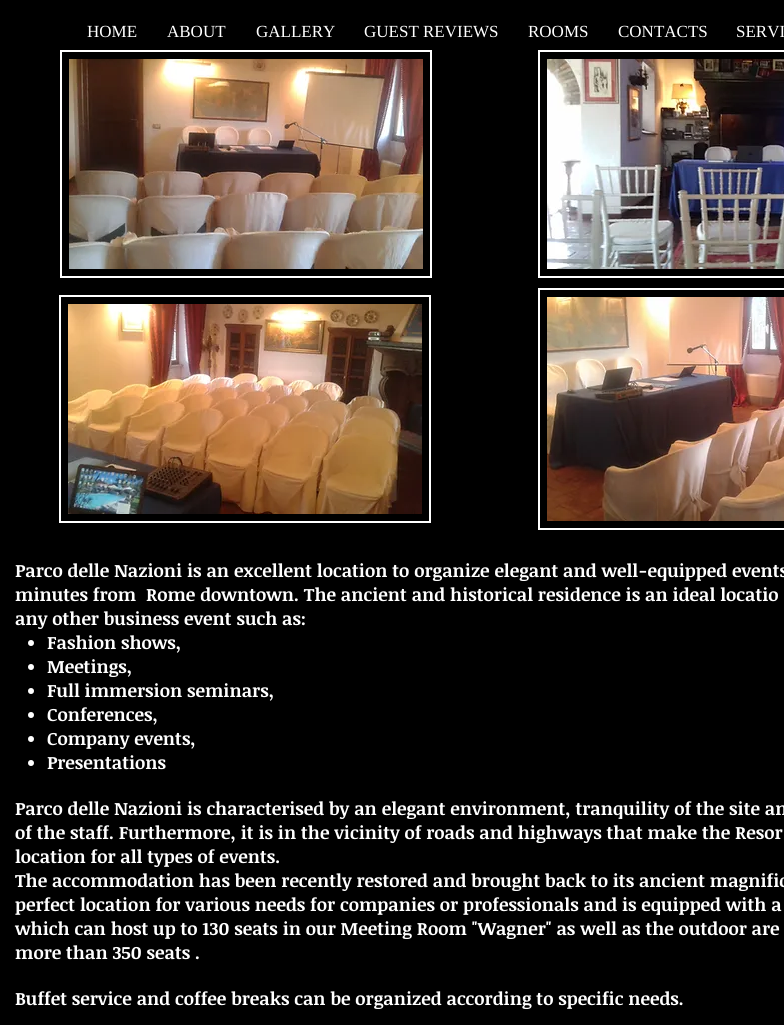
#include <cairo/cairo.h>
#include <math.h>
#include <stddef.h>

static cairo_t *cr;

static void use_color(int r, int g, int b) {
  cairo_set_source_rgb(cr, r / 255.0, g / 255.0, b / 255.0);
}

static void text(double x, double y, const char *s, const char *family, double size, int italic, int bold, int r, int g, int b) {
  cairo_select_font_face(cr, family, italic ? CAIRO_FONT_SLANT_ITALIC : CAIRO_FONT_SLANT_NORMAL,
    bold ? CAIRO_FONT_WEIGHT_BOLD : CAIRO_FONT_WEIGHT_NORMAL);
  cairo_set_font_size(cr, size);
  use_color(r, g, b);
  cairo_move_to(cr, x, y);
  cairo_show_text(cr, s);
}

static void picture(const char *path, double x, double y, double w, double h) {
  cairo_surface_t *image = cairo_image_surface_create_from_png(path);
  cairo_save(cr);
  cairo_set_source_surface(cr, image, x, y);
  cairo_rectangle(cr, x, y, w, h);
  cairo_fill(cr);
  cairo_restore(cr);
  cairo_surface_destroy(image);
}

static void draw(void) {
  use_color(0, 0, 0);
  cairo_paint(cr);
  cairo_rectangle(cr, 61, 51, 370, 226);
  use_color(255, 255, 255);
  cairo_stroke(cr);
  picture("img_01.png", 69, 59, 354, 210);
  cairo_rectangle(cr, 539, 51, 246, 226);
  cairo_stroke(cr);
  picture("img_02.png", 547, 59, 237, 210);
  cairo_rectangle(cr, 60, 296, 370, 226);
  cairo_stroke(cr);
  picture("img_03.png", 68, 304, 354, 210);
  cairo_rectangle(cr, 539, 289, 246, 240);
  cairo_stroke(cr);
  picture("img_04.png", 547, 297, 237, 224);
  cairo_arc(cr, 31, 643, 3, 0, 2 * M_PI);
  cairo_fill(cr);
  cairo_arc(cr, 31, 667, 3, 0, 2 * M_PI);
  cairo_fill(cr);
  cairo_arc(cr, 31, 691, 3, 0, 2 * M_PI);
  cairo_fill(cr);
  cairo_arc(cr, 31, 715, 3, 0, 2 * M_PI);
  cairo_fill(cr);
  cairo_arc(cr, 31, 739, 3, 0, 2 * M_PI);
  cairo_fill(cr);
  cairo_arc(cr, 31, 763, 3, 0, 2 * M_PI);
  cairo_fill(cr);
  text(87, 37, "HOME", "Liberation Serif", 17, 0, 0, 255, 255, 255);
  text(167, 37, "ABOUT", "Liberation Serif", 17, 0, 0, 255, 255, 255);
  text(256, 37, "GALLERY", "Liberation Serif", 17, 0, 0, 255, 255, 255);
  text(364, 37, "GUEST REVIEWS", "Liberation Serif", 17, 0, 0, 255, 255, 255);
  text(528, 37, "ROOMS", "Liberation Serif", 17, 0, 0, 255, 255, 255);
  text(618, 37, "CONTACTS", "Liberation Serif", 17, 0, 0, 255, 255, 255);
  text(736, 37, "SERVI", "Liberation Serif", 17, 0, 0, 255, 255, 255);
  text(15, 577, "Parco delle Nazioni is an excellent location to organize elegant and well-equipped events", "Noticia Text", 18, 0, 1, 255, 255, 255);
  text(15, 601, "minutes from  Rome downtown. The ancient and historical residence is an ideal locatio", "Noticia Text", 18, 0, 1, 255, 255, 255);
  text(15, 625, "any other business event such as:", "Noticia Text", 18, 0, 1, 255, 255, 255);
  text(47, 649, "Fashion shows,", "Noticia Text", 18, 0, 1, 255, 255, 255);
  text(47, 673, "Meetings,", "Noticia Text", 18, 0, 1, 255, 255, 255);
  text(47, 697, "Full immersion seminars,", "Noticia Text", 18, 0, 1, 255, 255, 255);
  text(47, 721, "Conferences,", "Noticia Text", 18, 0, 1, 255, 255, 255);
  text(47, 745, "Company events,", "Noticia Text", 18, 0, 1, 255, 255, 255);
  text(47, 769, "Presentations", "Noticia Text", 18, 0, 1, 255, 255, 255);
  text(15, 815, "Parco delle Nazioni is characterised by an elegant environment, tranquility of the site an", "Noticia Text", 18, 0, 1, 255, 255, 255);
  text(15, 839, "of the staff. Furthermore, it is in the vicinity of roads and highways that make the Resor", "Noticia Text", 18, 0, 1, 255, 255, 255);
  text(15, 863, "location for all types of events.", "Noticia Text", 18, 0, 1, 255, 255, 255);
  text(15, 887, "The accommodation has been recently restored and brought back to its ancient magnific", "Noticia Text", 18, 0, 1, 255, 255, 255);
  text(15, 911, "perfect location for various needs for companies or professionals and is equipped with a", "Noticia Text", 18, 0, 1, 255, 255, 255);
  text(15, 935, "which can host up to 130 seats in our Meeting Room \"Wagner\" as well as the outdoor are", "Noticia Text", 18, 0, 1, 255, 255, 255);
  text(15, 959, "more than 350 seats .", "Noticia Text", 18, 0, 1, 255, 255, 255);
  text(15, 1005, "Buffet service and coffee breaks can be organized according to specific needs.", "Noticia Text", 18, 0, 1, 255, 255, 255);
}

int main(void) {
  cairo_surface_t *surface = cairo_image_surface_create(CAIRO_FORMAT_RGB24, 784, 1025);
  cr = cairo_create(surface);
  cairo_font_options_t *options = cairo_font_options_create();
  cairo_font_options_set_hint_metrics(options, CAIRO_HINT_METRICS_OFF);
  cairo_font_options_set_hint_style(options, CAIRO_HINT_STYLE_NONE);
  cairo_set_font_options(cr, options);
  cairo_set_miter_limit(cr, 4);
  draw();
  cairo_surface_write_to_png(surface, "out.png");
  cairo_font_options_destroy(options);
  cairo_destroy(cr);
  cairo_surface_destroy(surface);
  return 0;
}
